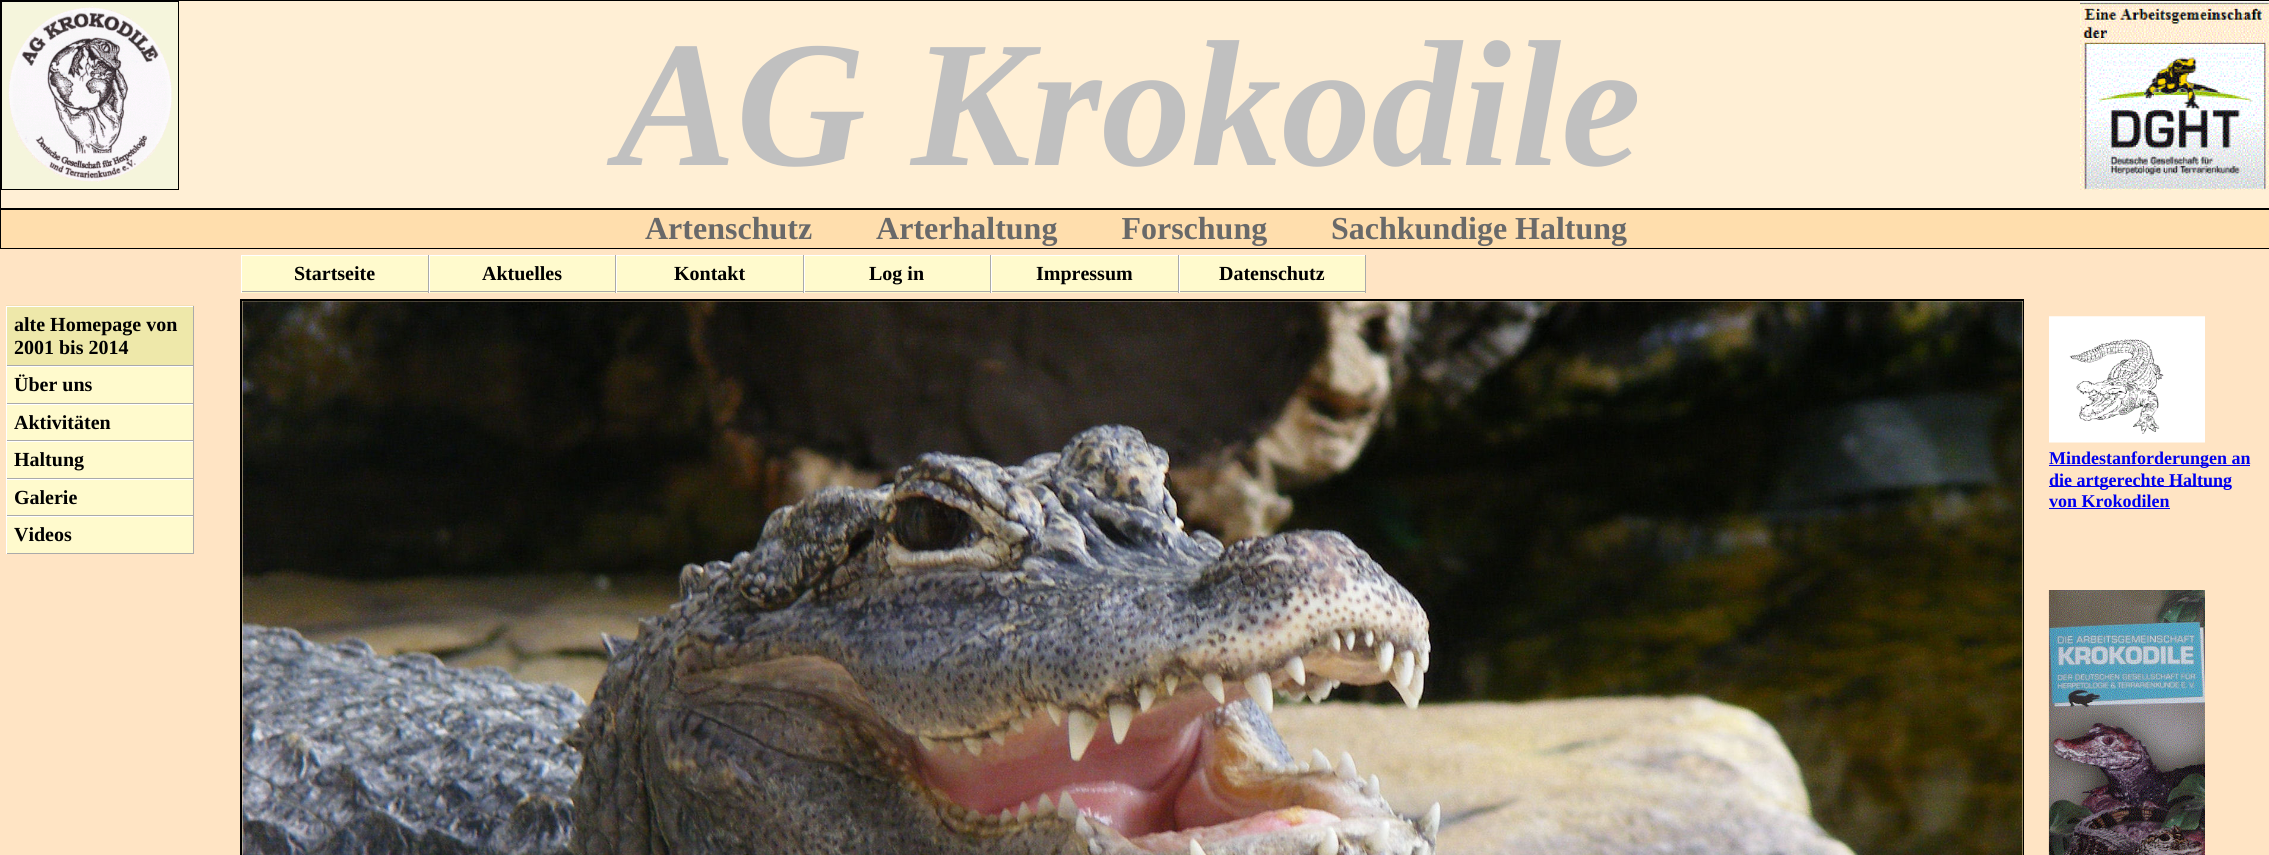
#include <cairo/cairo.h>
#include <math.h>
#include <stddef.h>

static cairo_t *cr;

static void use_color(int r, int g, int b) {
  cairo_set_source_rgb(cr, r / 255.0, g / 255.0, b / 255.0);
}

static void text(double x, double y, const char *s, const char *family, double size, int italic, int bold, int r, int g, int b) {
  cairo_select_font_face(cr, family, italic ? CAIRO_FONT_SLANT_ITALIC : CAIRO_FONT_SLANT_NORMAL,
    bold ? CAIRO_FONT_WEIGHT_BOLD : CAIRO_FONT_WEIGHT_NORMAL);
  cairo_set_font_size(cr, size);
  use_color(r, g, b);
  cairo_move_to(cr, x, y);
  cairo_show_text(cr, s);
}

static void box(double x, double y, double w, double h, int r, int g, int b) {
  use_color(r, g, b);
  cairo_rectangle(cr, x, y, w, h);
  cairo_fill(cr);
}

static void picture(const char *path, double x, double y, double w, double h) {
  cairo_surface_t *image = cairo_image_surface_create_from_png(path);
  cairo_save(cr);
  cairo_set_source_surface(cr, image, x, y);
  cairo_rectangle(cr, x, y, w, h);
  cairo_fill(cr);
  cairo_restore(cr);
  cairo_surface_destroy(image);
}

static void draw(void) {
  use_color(255, 228, 196);
  cairo_paint(cr);
  use_color(255, 239, 213);
  cairo_rectangle(cr, 0.5, 0.5, 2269, 208);
  cairo_fill_preserve(cr);
  use_color(0, 0, 0);
  cairo_set_line_width(cr, 1);
  cairo_stroke(cr);
  use_color(245, 245, 220);
  cairo_rectangle(cr, 1.5, 1.5, 177, 188);
  cairo_fill_preserve(cr);
  use_color(0, 0, 0);
  cairo_stroke(cr);
  picture("img_01.png", 8, 6, 165, 177);
  picture("img_02.png", 2080, 1, 189, 189);
  use_color(255, 222, 173);
  cairo_rectangle(cr, 0.5, 209.5, 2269, 39);
  cairo_fill_preserve(cr);
  use_color(0, 0, 0);
  cairo_stroke(cr);
  box(242, 256, 186, 37, 255, 250, 205);
  box(241, 255, 1125, 1, 255, 255, 255);
  box(428, 255, 1, 38, 170, 170, 170);
  box(241, 291, 188, 1, 170, 170, 170);
  box(241, 255, 1, 38, 255, 255, 255);
  box(430, 256, 185, 37, 255, 250, 205);
  box(615, 255, 1, 38, 170, 170, 170);
  box(429, 291, 187, 1, 170, 170, 170);
  box(429, 255, 1, 38, 255, 255, 255);
  box(617, 256, 186, 37, 255, 250, 205);
  box(803, 255, 1, 38, 170, 170, 170);
  box(616, 291, 188, 1, 170, 170, 170);
  box(616, 255, 1, 38, 255, 255, 255);
  box(805, 256, 185, 37, 255, 250, 205);
  box(990, 255, 1, 38, 170, 170, 170);
  box(804, 291, 187, 1, 170, 170, 170);
  box(804, 255, 1, 38, 255, 255, 255);
  box(992, 256, 186, 37, 255, 250, 205);
  box(1178, 255, 1, 38, 170, 170, 170);
  box(991, 291, 188, 1, 170, 170, 170);
  box(991, 255, 1, 38, 255, 255, 255);
  box(1180, 256, 185, 37, 255, 250, 205);
  box(1365, 255, 1, 38, 170, 170, 170);
  box(1179, 291, 187, 1, 170, 170, 170);
  box(1179, 255, 1, 38, 255, 255, 255);
  box(6, 305, 188, 1, 245, 222, 179);
  box(7, 307, 186, 58, 238, 232, 170);
  box(6, 306, 188, 1, 255, 255, 255);
  box(193, 306, 1, 60, 170, 170, 170);
  box(6, 365, 188, 1, 170, 170, 170);
  box(6, 306, 1, 60, 255, 255, 255);
  box(7, 367, 186, 36, 255, 250, 205);
  box(6, 366, 188, 1, 255, 255, 255);
  box(193, 366, 1, 38, 170, 170, 170);
  box(6, 403, 188, 1, 170, 170, 170);
  box(6, 366, 1, 38, 255, 255, 255);
  box(7, 405, 186, 35, 255, 250, 205);
  box(6, 404, 188, 1, 255, 255, 255);
  box(193, 404, 1, 37, 170, 170, 170);
  box(6, 440, 188, 1, 170, 170, 170);
  box(6, 404, 1, 37, 255, 255, 255);
  box(7, 442, 186, 36, 255, 250, 205);
  box(6, 441, 188, 1, 255, 255, 255);
  box(193, 441, 1, 38, 170, 170, 170);
  box(6, 478, 188, 1, 170, 170, 170);
  box(6, 441, 1, 38, 255, 255, 255);
  box(7, 480, 186, 35, 255, 250, 205);
  box(6, 479, 188, 1, 255, 255, 255);
  box(193, 479, 1, 37, 170, 170, 170);
  box(6, 515, 188, 1, 170, 170, 170);
  box(6, 479, 1, 37, 255, 255, 255);
  box(7, 517, 186, 36, 255, 250, 205);
  box(6, 516, 188, 1, 255, 255, 255);
  box(193, 516, 1, 38, 170, 170, 170);
  box(6, 553, 188, 1, 170, 170, 170);
  box(6, 516, 1, 38, 255, 255, 255);
  box(242, 301, 1781, 554, 245, 222, 179);
  cairo_rectangle(cr, 240.5, 299.5, 1783, 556);
  use_color(0, 0, 0);
  cairo_stroke(cr);
  cairo_save(cr);
  cairo_rectangle(cr, 241, 300, 1782, 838);
  cairo_clip(cr);
  cairo_rectangle(cr, 241.5, 300.5, 1783, 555);
  cairo_stroke(cr);
  cairo_restore(cr);
  picture("img_03.png", 242, 301, 1781, 554);
  picture("img_04.png", 2049, 316, 156, 127);
  box(2049, 465, 201, 1, 0, 0, 238);
  box(2049, 486, 182, 1, 0, 0, 238);
  box(2049, 508, 121, 1, 0, 0, 238);
  picture("img_05.png", 2048, 590, 157, 265);
  text(616, 165, "AG Krokodile", "Liberation Serif", 180, 1, 1, 192, 192, 192);
  text(645, 239, "Artenschutz        Arterhaltung        Forschung", "Liberation Serif", 32, 0, 1, 105, 105, 105);
  text(1331, 239, "Sachkundige Haltung", "Liberation Serif", 32, 0, 1, 105, 105, 105);
  text(294, 280, "Startseite", "Liberation Serif", 20, 0, 1, 0, 0, 0);
  text(482, 280, "Aktuelles", "Liberation Serif", 20, 0, 1, 0, 0, 0);
  text(674, 280, "Kontakt", "Liberation Serif", 20, 0, 1, 0, 0, 0);
  text(869, 280, "Log in", "Liberation Serif", 20, 0, 1, 0, 0, 0);
  text(1036, 280, "Impressum", "Liberation Serif", 20, 0, 1, 0, 0, 0);
  text(1219, 280, "Datenschutz", "Liberation Serif", 20, 0, 1, 0, 0, 0);
  text(14, 331, "alte Homepage von", "Liberation Serif", 20, 0, 1, 0, 0, 0);
  text(14, 354, "2001 bis 2014", "Liberation Serif", 20, 0, 1, 0, 0, 0);
  text(14, 391, "Über uns", "Liberation Serif", 20, 0, 1, 0, 0, 0);
  text(14, 429, "Aktivitäten", "Liberation Serif", 20, 0, 1, 0, 0, 0);
  text(14, 466, "Haltung", "Liberation Serif", 20, 0, 1, 0, 0, 0);
  text(14, 504, "Galerie", "Liberation Serif", 20, 0, 1, 0, 0, 0);
  text(14, 541, "Videos", "Liberation Serif", 20, 0, 1, 0, 0, 0);
  text(2049, 464, "Mindestanforderungen an", "Liberation Serif", 18, 0, 1, 0, 0, 238);
  text(2049, 486, "die artgerechte Haltung", "Liberation Serif", 18, 0, 1, 0, 0, 238);
  text(2049, 507, "von Krokodilen", "Liberation Serif", 18, 0, 1, 0, 0, 238);
}

int main(void) {
  cairo_surface_t *surface = cairo_image_surface_create(CAIRO_FORMAT_RGB24, 2269, 855);
  cr = cairo_create(surface);
  cairo_font_options_t *options = cairo_font_options_create();
  cairo_font_options_set_hint_metrics(options, CAIRO_HINT_METRICS_OFF);
  cairo_font_options_set_hint_style(options, CAIRO_HINT_STYLE_NONE);
  cairo_set_font_options(cr, options);
  cairo_set_miter_limit(cr, 4);
  draw();
  cairo_surface_write_to_png(surface, "out.png");
  cairo_font_options_destroy(options);
  cairo_destroy(cr);
  cairo_surface_destroy(surface);
  return 0;
}
